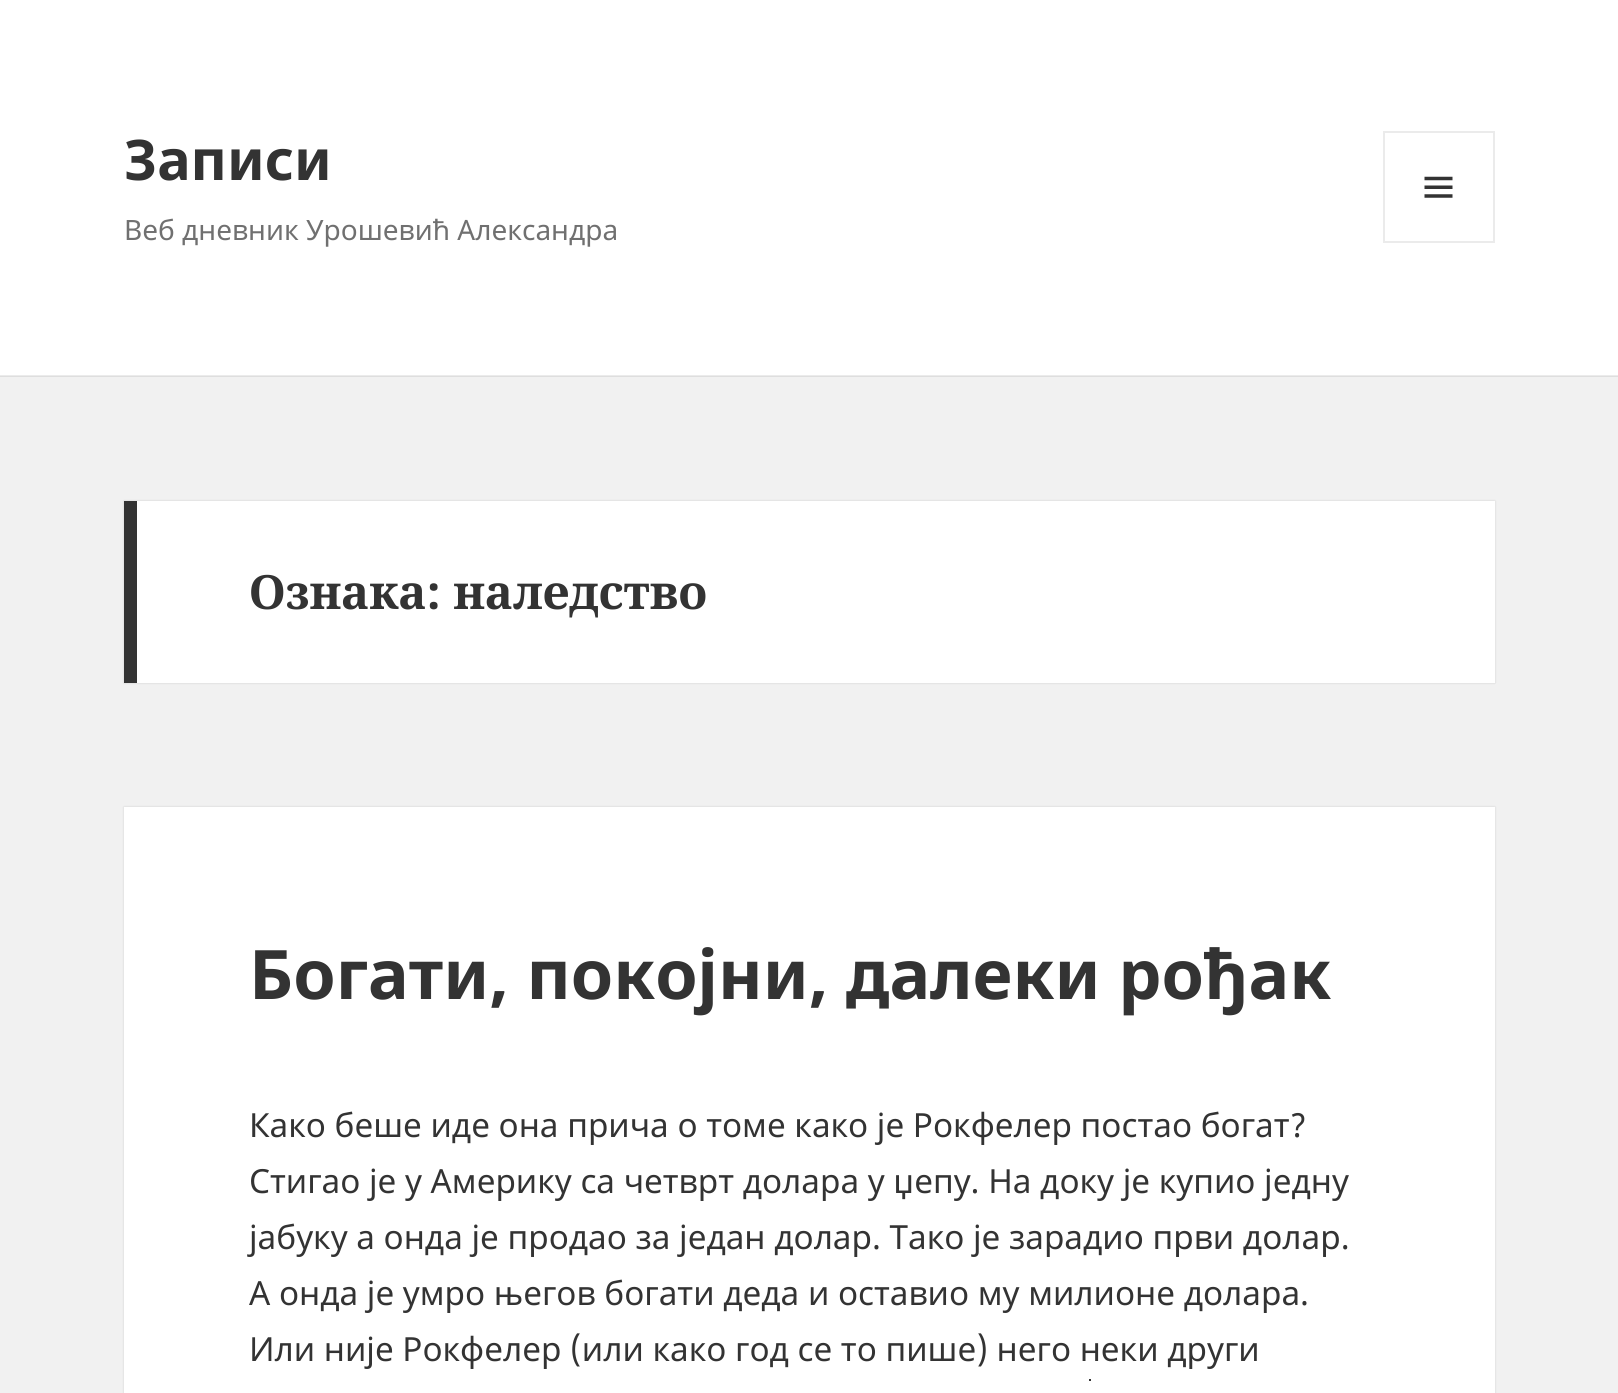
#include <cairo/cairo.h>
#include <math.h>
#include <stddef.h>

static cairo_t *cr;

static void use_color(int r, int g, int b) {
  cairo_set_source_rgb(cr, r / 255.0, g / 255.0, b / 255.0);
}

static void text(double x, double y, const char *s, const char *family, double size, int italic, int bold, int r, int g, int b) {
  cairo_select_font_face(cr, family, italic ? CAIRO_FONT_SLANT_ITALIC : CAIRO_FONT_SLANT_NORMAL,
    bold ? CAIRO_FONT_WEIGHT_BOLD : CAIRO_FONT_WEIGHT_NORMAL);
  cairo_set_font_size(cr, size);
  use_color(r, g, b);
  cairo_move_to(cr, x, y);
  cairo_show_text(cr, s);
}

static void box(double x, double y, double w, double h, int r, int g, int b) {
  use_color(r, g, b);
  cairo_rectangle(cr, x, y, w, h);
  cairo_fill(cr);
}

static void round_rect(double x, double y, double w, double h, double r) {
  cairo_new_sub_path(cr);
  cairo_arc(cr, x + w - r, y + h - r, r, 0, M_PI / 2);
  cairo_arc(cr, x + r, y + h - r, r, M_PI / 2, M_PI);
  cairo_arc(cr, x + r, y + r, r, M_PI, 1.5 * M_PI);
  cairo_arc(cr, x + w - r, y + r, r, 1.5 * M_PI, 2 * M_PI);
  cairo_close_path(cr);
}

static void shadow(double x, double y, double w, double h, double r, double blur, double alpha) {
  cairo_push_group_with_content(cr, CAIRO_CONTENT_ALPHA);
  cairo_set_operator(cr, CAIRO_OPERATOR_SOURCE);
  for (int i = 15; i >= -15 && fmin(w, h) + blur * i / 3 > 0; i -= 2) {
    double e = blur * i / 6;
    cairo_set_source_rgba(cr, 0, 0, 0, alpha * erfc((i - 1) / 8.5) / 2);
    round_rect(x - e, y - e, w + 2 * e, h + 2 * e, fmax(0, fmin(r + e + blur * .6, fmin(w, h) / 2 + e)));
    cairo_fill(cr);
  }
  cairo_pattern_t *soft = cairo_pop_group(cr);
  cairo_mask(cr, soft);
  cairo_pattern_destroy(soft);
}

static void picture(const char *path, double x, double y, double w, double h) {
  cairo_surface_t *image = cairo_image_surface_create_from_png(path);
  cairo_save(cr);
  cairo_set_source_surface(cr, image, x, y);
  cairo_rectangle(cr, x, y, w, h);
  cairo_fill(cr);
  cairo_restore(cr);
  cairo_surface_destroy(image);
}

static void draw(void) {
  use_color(241, 241, 241);
  cairo_paint(cr);
  box(0, 376, 1618, 1, 222, 222, 222);
  box(0, 0, 1618, 375, 255, 255, 255);
  box(0, 375, 1618, 1, 235, 235, 235);
  cairo_rectangle(cr, 1384, 132, 110, 110);
  cairo_stroke(cr);
  picture("img_01.png", 1424, 176, 29, 22);
  use_color(0, 0, 0);
  shadow(124, 501, 1371, 182, 0, 1, 0.15);
  box(137, 501, 1358, 182, 255, 255, 255);
  box(124, 501, 13, 182, 51, 51, 51);
  use_color(0, 0, 0);
  shadow(124, 807, 1371, 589, 0, 1, 0.15);
  box(124, 807, 1371, 586, 255, 255, 255);
  box(1089, 1379, 2, 2, 51, 51, 51);
  text(124, 180, "Записи", "Noto Sans", 56, 0, 1, 51, 51, 51);
  text(124, 240, "Веб дневник Урошевић Александра", "Noto Sans", 28, 0, 0, 112, 112, 112);
  text(249, 609, "Ознака: наледство", "Noto Serif", 47.25, 0, 1, 51, 51, 51);
  text(249, 999, "Богати, покојни, далеки рођак", "Noto Sans", 68.25, 0, 1, 51, 51, 51);
  text(249, 1137, "Како беше иде она прича о томе како је Рокфелер постао богат?", "Noto Sans", 33.25, 0, 0, 51, 51, 51);
  text(249, 1193, "Стигао је у Америку са четврт долара у џепу. На доку је купио једну", "Noto Sans", 33.25, 0, 0, 51, 51, 51);
  text(249, 1249, "јабуку а онда је продао за један долар. Тако је зарадио први долар.", "Noto Sans", 33.25, 0, 0, 51, 51, 51);
  text(249, 1305, "А онда је умро његов богати деда и оставио му милионе долара.", "Noto Sans", 33.25, 0, 0, 51, 51, 51);
  text(249, 1361, "Или није Рокфелер (или како год се то пише) него неки други", "Noto Sans", 33.25, 0, 0, 51, 51, 51);
}

int main(void) {
  cairo_surface_t *surface = cairo_image_surface_create(CAIRO_FORMAT_RGB24, 1618, 1393);
  cr = cairo_create(surface);
  cairo_font_options_t *options = cairo_font_options_create();
  cairo_font_options_set_hint_metrics(options, CAIRO_HINT_METRICS_OFF);
  cairo_font_options_set_hint_style(options, CAIRO_HINT_STYLE_NONE);
  cairo_set_font_options(cr, options);
  cairo_set_miter_limit(cr, 4);
  draw();
  cairo_surface_write_to_png(surface, "out.png");
  cairo_font_options_destroy(options);
  cairo_destroy(cr);
  cairo_surface_destroy(surface);
  return 0;
}
